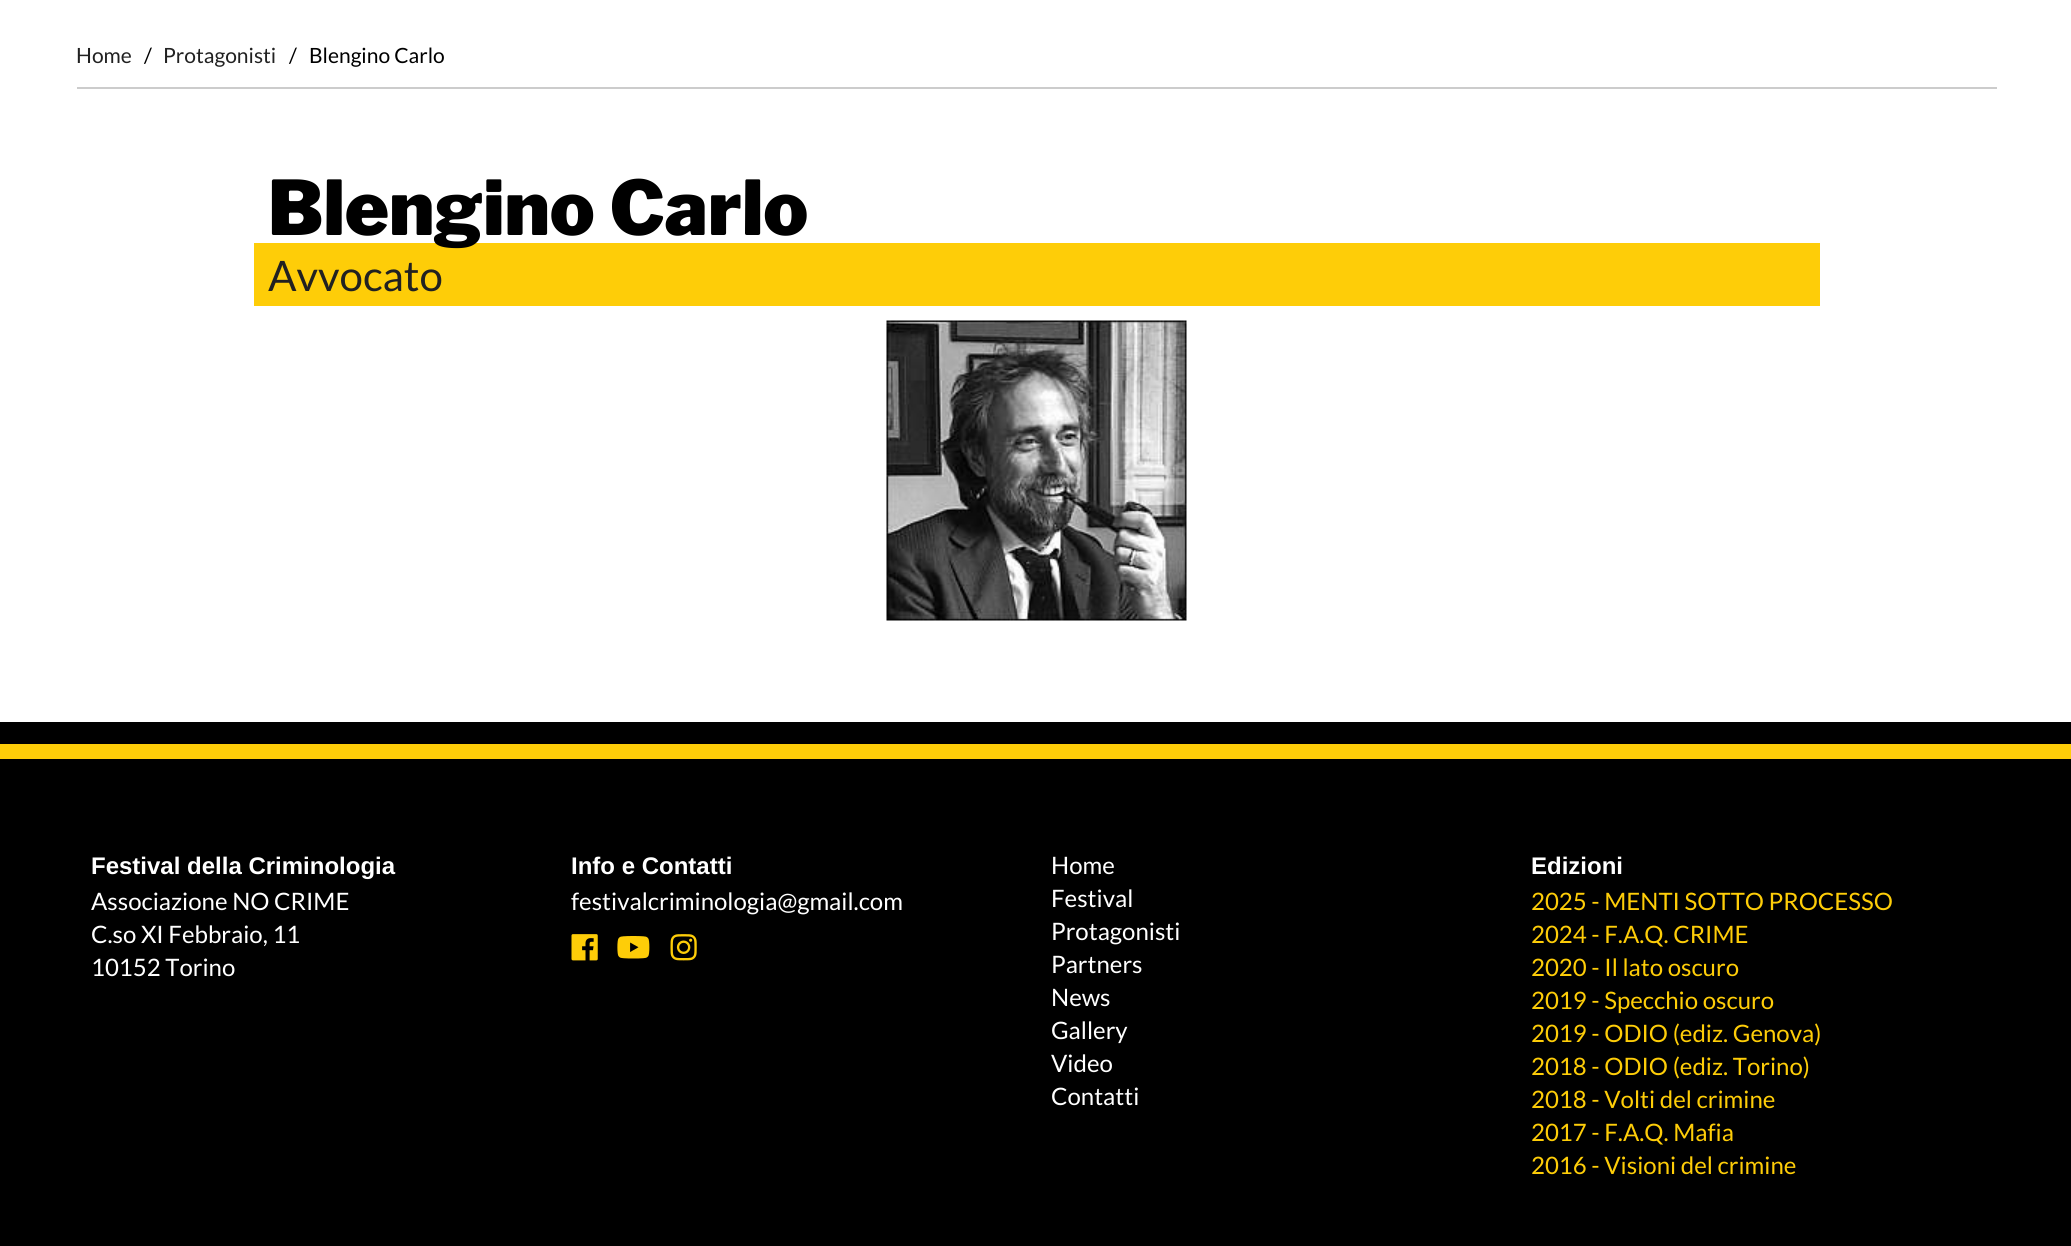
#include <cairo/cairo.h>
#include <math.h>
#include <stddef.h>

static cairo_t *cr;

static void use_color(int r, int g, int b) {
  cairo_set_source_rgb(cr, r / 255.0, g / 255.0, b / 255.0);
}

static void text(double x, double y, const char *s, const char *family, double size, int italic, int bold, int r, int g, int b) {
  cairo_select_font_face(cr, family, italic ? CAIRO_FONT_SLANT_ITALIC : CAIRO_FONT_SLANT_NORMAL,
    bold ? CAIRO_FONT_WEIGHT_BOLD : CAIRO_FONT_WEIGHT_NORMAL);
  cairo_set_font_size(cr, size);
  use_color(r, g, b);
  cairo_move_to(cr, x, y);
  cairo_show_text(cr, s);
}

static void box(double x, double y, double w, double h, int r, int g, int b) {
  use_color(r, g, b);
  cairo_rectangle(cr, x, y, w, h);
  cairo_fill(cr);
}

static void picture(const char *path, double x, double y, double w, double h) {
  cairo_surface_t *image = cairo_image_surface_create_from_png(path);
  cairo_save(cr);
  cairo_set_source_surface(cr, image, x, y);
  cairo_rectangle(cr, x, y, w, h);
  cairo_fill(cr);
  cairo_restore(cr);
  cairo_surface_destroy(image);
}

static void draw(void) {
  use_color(255, 255, 255);
  cairo_paint(cr);
  box(77, 87, 1920, 2, 204, 204, 204);
  box(254, 243, 1566, 63, 254, 205, 8);
  picture("img_01.png", 886, 320, 301, 301);
  box(0, 722, 2071, 524, 0, 0, 0);
  box(0, 744, 2071, 15, 254, 205, 8);
  picture("img_02.png", 571, 934, 27, 27);
  picture("img_03.png", 617, 936, 33, 23);
  picture("img_04.png", 670, 934, 27, 27);
  text(76, 63, "Home", "Lato", 21, 0, 0, 33, 33, 33);
  text(144, 63, "/", "Lato", 21, 0, 0, 0, 0, 0);
  text(163, 63, "Protagonisti", "Lato", 21, 0, 0, 33, 33, 33);
  text(289, 63, "/", "Lato", 21, 0, 0, 0, 0, 0);
  text(309, 63, "Blengino Carlo", "Lato", 21, 0, 0, 0, 0, 0);
  text(268, 235, "Blengino Carlo", "Libre Franklin Black", 75, 0, 0, 0, 0, 0);
  text(268, 291, "Avvocato", "Lato", 42, 0, 0, 33, 33, 33);
  text(91, 874, "Festival della Criminologia", "Liberation Sans", 24, 0, 1, 255, 255, 255);
  text(91, 910, "Associazione NO CRIME", "Lato", 24, 0, 0, 255, 255, 255);
  text(91, 943, "C.so XI Febbraio, 11", "Lato", 24, 0, 0, 255, 255, 255);
  text(91, 976, "10152 Torino", "Lato", 24, 0, 0, 255, 255, 255);
  text(571, 874, "Info e Contatti", "Liberation Sans", 24, 0, 1, 255, 255, 255);
  text(571, 910, "festivalcriminologia@gmail.com", "Lato", 24, 0, 0, 255, 255, 255);
  text(1051, 874, "Home", "Lato", 24, 0, 0, 255, 255, 255);
  text(1051, 907, "Festival", "Lato", 24, 0, 0, 255, 255, 255);
  text(1051, 940, "Protagonisti", "Lato", 24, 0, 0, 255, 255, 255);
  text(1051, 973, "Partners", "Lato", 24, 0, 0, 255, 255, 255);
  text(1051, 1006, "News", "Lato", 24, 0, 0, 255, 255, 255);
  text(1051, 1039, "Gallery", "Lato", 24, 0, 0, 255, 255, 255);
  text(1051, 1072, "Video", "Lato", 24, 0, 0, 255, 255, 255);
  text(1051, 1105, "Contatti", "Lato", 24, 0, 0, 255, 255, 255);
  text(1531, 874, "Edizioni", "Liberation Sans", 24, 0, 1, 255, 255, 255);
  text(1531, 910, "2025 - MENTI SOTTO PROCESSO", "Lato", 24, 0, 0, 254, 205, 8);
  text(1531, 943, "2024 - F.A.Q. CRIME", "Lato", 24, 0, 0, 254, 205, 8);
  text(1531, 976, "2020 - Il lato oscuro", "Lato", 24, 0, 0, 254, 205, 8);
  text(1531, 1009, "2019 - Specchio oscuro", "Lato", 24, 0, 0, 254, 205, 8);
  text(1531, 1042, "2019 - ODIO (ediz. Genova)", "Lato", 24, 0, 0, 254, 205, 8);
  text(1531, 1075, "2018 - ODIO (ediz. Torino)", "Lato", 24, 0, 0, 254, 205, 8);
  text(1531, 1108, "2018 - Volti del crimine", "Lato", 24, 0, 0, 254, 205, 8);
  text(1531, 1141, "2017 - F.A.Q. Mafia", "Lato", 24, 0, 0, 254, 205, 8);
  text(1531, 1174, "2016 - Visioni del crimine", "Lato", 24, 0, 0, 254, 205, 8);
}

int main(void) {
  cairo_surface_t *surface = cairo_image_surface_create(CAIRO_FORMAT_RGB24, 2071, 1246);
  cr = cairo_create(surface);
  cairo_font_options_t *options = cairo_font_options_create();
  cairo_font_options_set_hint_metrics(options, CAIRO_HINT_METRICS_OFF);
  cairo_font_options_set_hint_style(options, CAIRO_HINT_STYLE_NONE);
  cairo_set_font_options(cr, options);
  cairo_set_miter_limit(cr, 4);
  draw();
  cairo_surface_write_to_png(surface, "out.png");
  cairo_font_options_destroy(options);
  cairo_destroy(cr);
  cairo_surface_destroy(surface);
  return 0;
}
